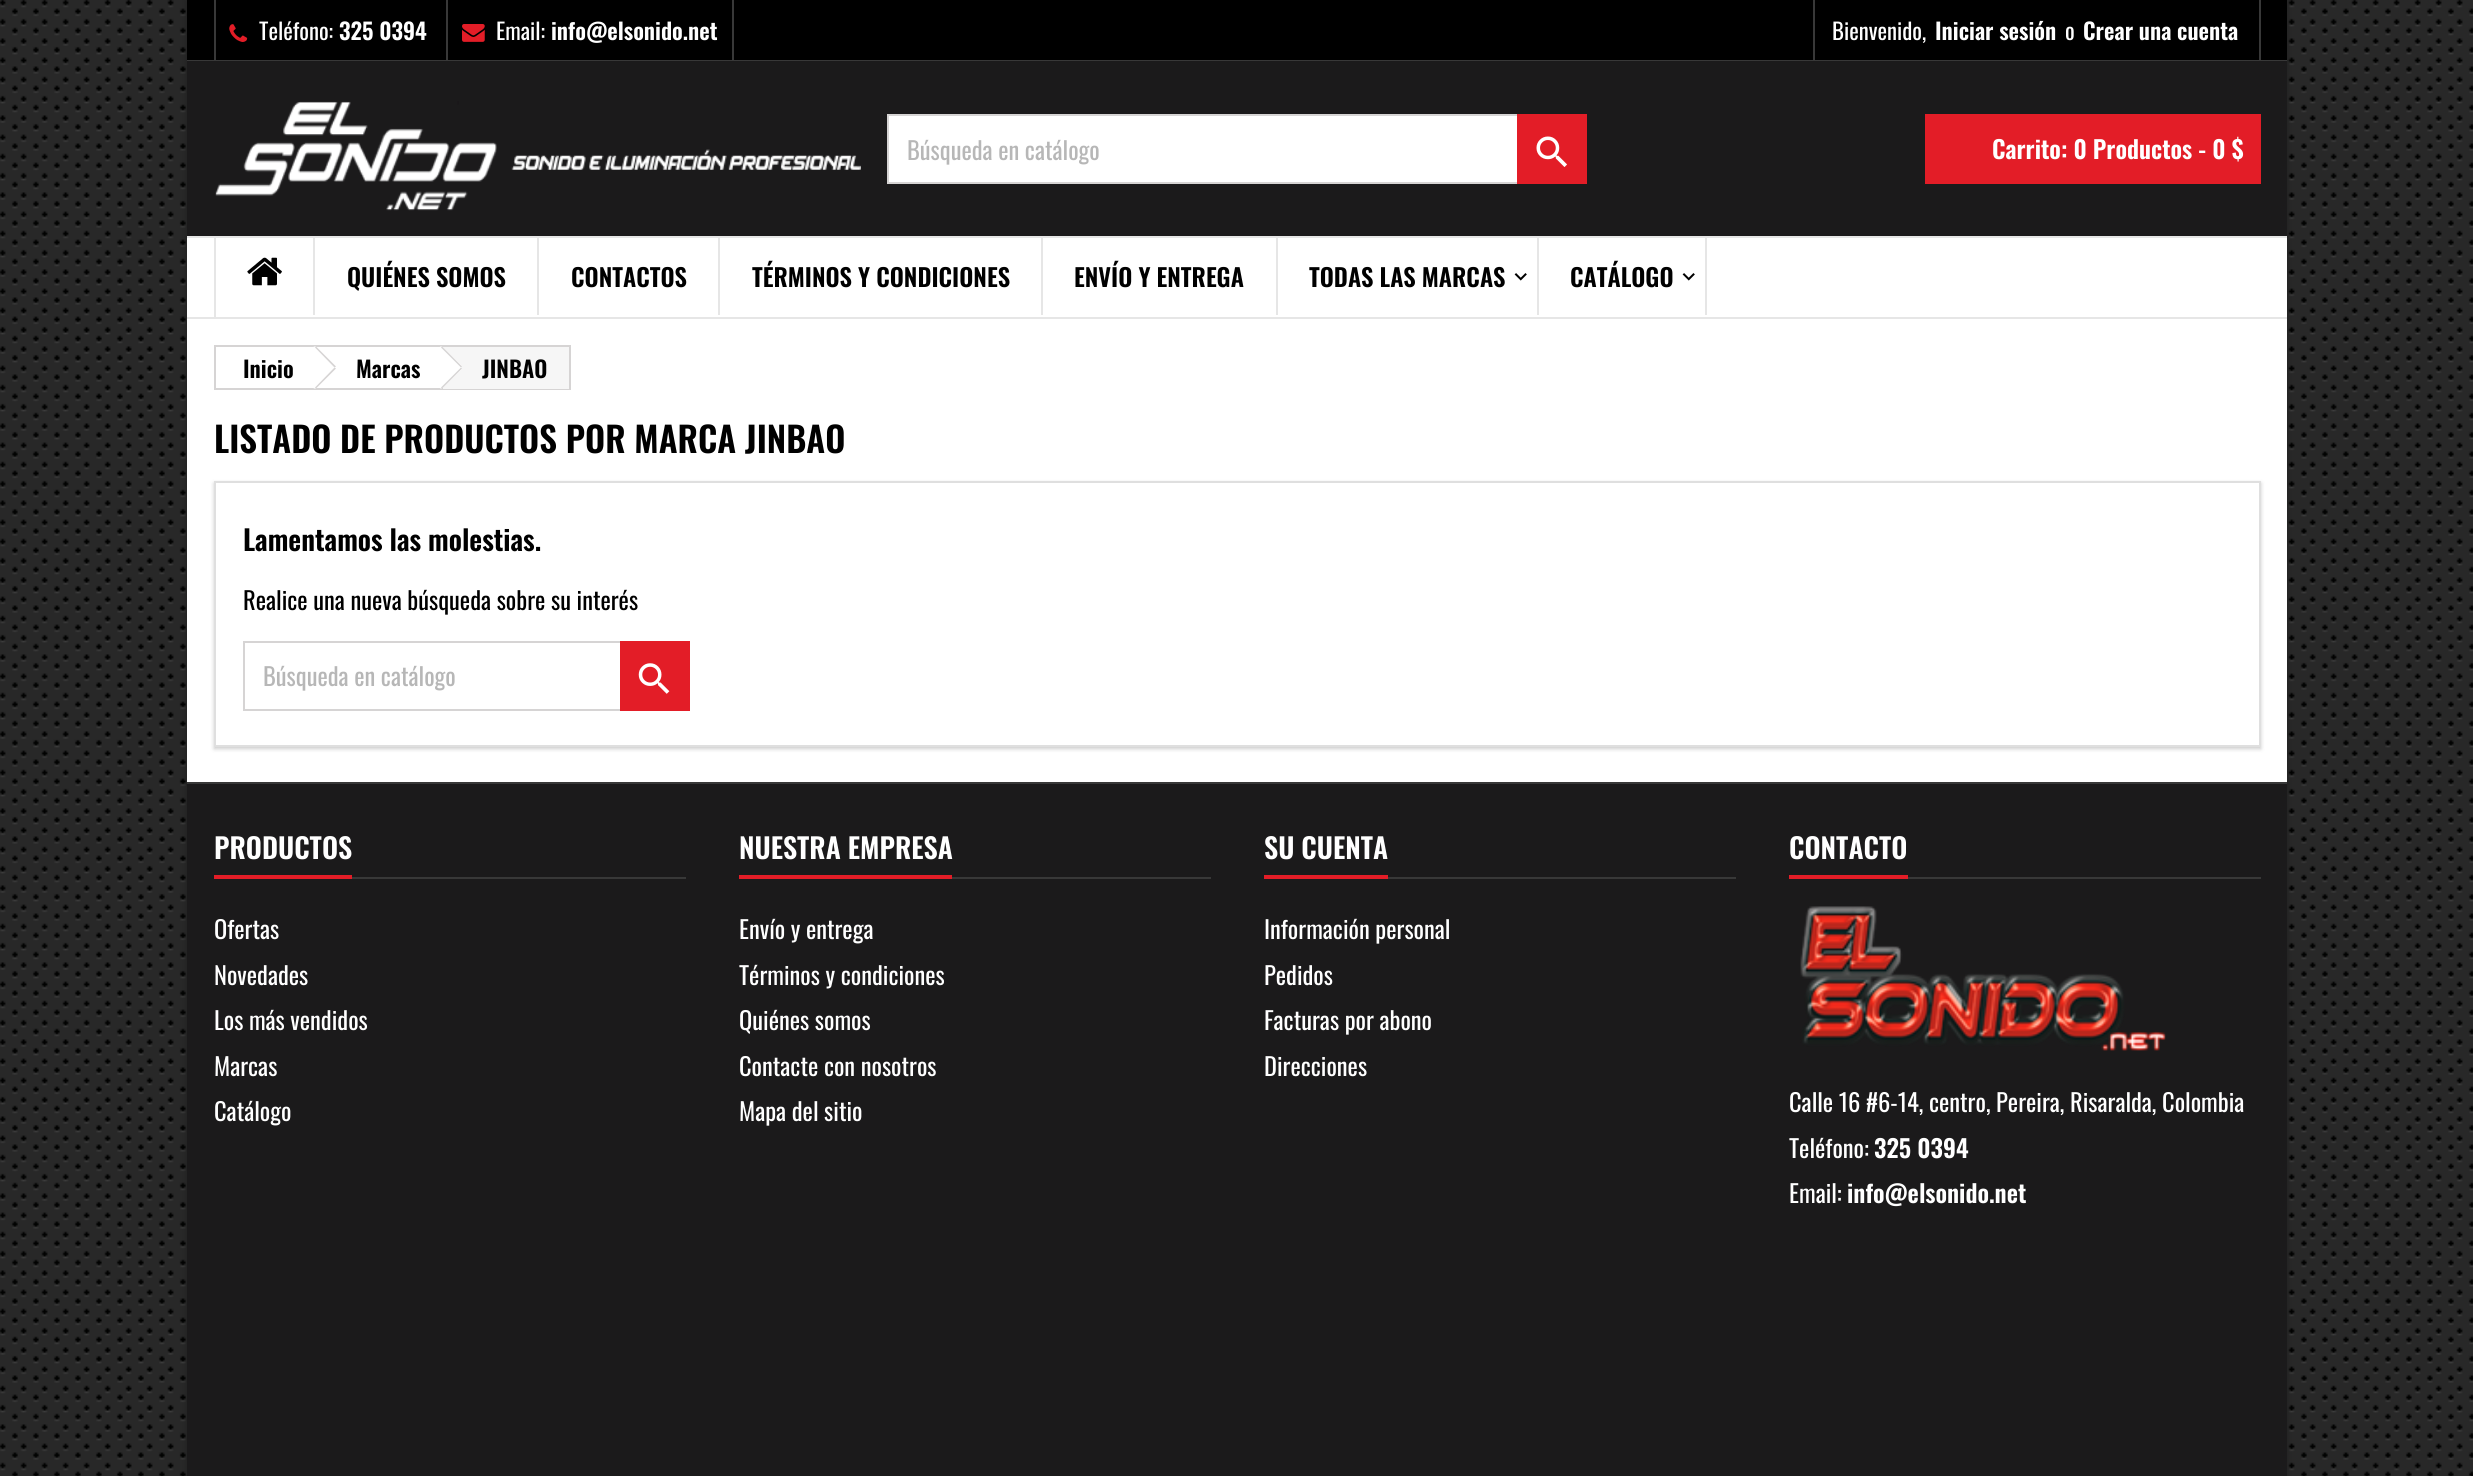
#include <cairo/cairo.h>
#include <math.h>
#include <stddef.h>

static cairo_t *cr;

static void use_color(int r, int g, int b) {
  cairo_set_source_rgb(cr, r / 255.0, g / 255.0, b / 255.0);
}

static void text(double x, double y, const char *s, const char *family, double size, int italic, int bold, int r, int g, int b) {
  cairo_select_font_face(cr, family, italic ? CAIRO_FONT_SLANT_ITALIC : CAIRO_FONT_SLANT_NORMAL,
    bold ? CAIRO_FONT_WEIGHT_BOLD : CAIRO_FONT_WEIGHT_NORMAL);
  cairo_set_font_size(cr, size);
  use_color(r, g, b);
  cairo_move_to(cr, x, y);
  cairo_show_text(cr, s);
}

static void box(double x, double y, double w, double h, int r, int g, int b) {
  use_color(r, g, b);
  cairo_rectangle(cr, x, y, w, h);
  cairo_fill(cr);
}

static void round_rect(double x, double y, double w, double h, double r) {
  cairo_new_sub_path(cr);
  cairo_arc(cr, x + w - r, y + h - r, r, 0, M_PI / 2);
  cairo_arc(cr, x + r, y + h - r, r, M_PI / 2, M_PI);
  cairo_arc(cr, x + r, y + r, r, M_PI, 1.5 * M_PI);
  cairo_arc(cr, x + w - r, y + r, r, 1.5 * M_PI, 2 * M_PI);
  cairo_close_path(cr);
}

static void shadow(double x, double y, double w, double h, double r, double blur, double alpha) {
  cairo_push_group_with_content(cr, CAIRO_CONTENT_ALPHA);
  cairo_set_operator(cr, CAIRO_OPERATOR_SOURCE);
  for (int i = 15; i >= -15 && fmin(w, h) + blur * i / 3 > 0; i -= 2) {
    double e = blur * i / 6;
    cairo_set_source_rgba(cr, 0, 0, 0, alpha * erfc((i - 1) / 8.5) / 2);
    round_rect(x - e, y - e, w + 2 * e, h + 2 * e, fmax(0, fmin(r + e + blur * .6, fmin(w, h) / 2 + e)));
    cairo_fill(cr);
  }
  cairo_pattern_t *soft = cairo_pop_group(cr);
  cairo_mask(cr, soft);
  cairo_pattern_destroy(soft);
}

static void picture(const char *path, double x, double y, double w, double h) {
  cairo_surface_t *image = cairo_image_surface_create_from_png(path);
  cairo_save(cr);
  cairo_set_source_surface(cr, image, x, y);
  cairo_rectangle(cr, x, y, w, h);
  cairo_fill(cr);
  cairo_restore(cr);
  cairo_surface_destroy(image);
}

static void draw(void) {
  use_color(255, 255, 255);
  cairo_paint(cr);
  picture("img_01.png", 0, 0, 2473, 1476);
  use_color(0, 0, 0);
  shadow(187, 0, 2100, 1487, 0, 3.5, 0.2);
  box(187, 238, 2100, 544, 255, 255, 255);
  box(187, 0, 2100, 60, 0, 0, 0);
  box(187, 60, 2100, 1, 56, 56, 56);
  box(214, 0, 2, 60, 56, 56, 56);
  picture("img_02.png", 229, 24, 19, 18);
  box(732, 0, 2, 60, 56, 56, 56);
  box(446, 0, 2, 60, 56, 56, 56);
  picture("img_03.png", 462, 24, 23, 18);
  box(2259, 0, 2, 60, 56, 56, 56);
  box(1813, 0, 2, 60, 56, 56, 56);
  box(187, 61, 2100, 175, 27, 26, 27);
  picture("img_04.png", 215, 101, 646, 110);
  box(889, 116, 628, 66, 255, 255, 255);
  cairo_rectangle(cr, 888, 115, 698, 68);
  use_color(214, 212, 212);
  cairo_stroke(cr);
  box(1517, 114, 70, 70, 227, 29, 39);
  picture("img_05.png", 1536, 136, 31, 31);
  box(1925, 114, 336, 70, 227, 29, 39);
  box(187, 236, 2100, 2, 230, 230, 230);
  box(187, 317, 2100, 2, 230, 230, 230);
  box(214, 238, 2, 79, 230, 230, 230);
  picture("img_06.png", 247, 257, 35, 29);
  box(313, 238, 2, 77, 230, 230, 230);
  box(537, 238, 2, 77, 230, 230, 230);
  box(718, 238, 2, 77, 230, 230, 230);
  box(1041, 238, 2, 77, 230, 230, 230);
  box(1276, 238, 2, 77, 230, 230, 230);
  picture("img_07.png", 1514, 273, 13, 8);
  box(1705, 238, 2, 77, 230, 230, 230);
  box(1537, 238, 2, 77, 230, 230, 230);
  picture("img_07.png", 1682, 273, 13, 8);
  cairo_rectangle(cr, 215, 346, 355, 43);
  use_color(214, 212, 212);
  cairo_stroke(cr);
  use_color(255, 255, 255);
  cairo_new_path(cr);
  cairo_move_to(cr, 317, 348);
  cairo_line_to(cr, 335, 365);
  cairo_curve_to(cr, 336, 366, 336, 369, 335, 370);
  cairo_line_to(cr, 317, 387);
  cairo_curve_to(cr, 316, 389, 314, 389, 312, 387);
  cairo_line_to(cr, 295, 370);
  cairo_curve_to(cr, 294, 369, 294, 366, 295, 365);
  cairo_line_to(cr, 312, 348);
  cairo_curve_to(cr, 314, 346, 316, 346, 317, 348);
  cairo_close_path(cr);
  cairo_fill(cr);
  use_color(214, 212, 212);
  cairo_new_path(cr);
  cairo_move_to(cr, 316, 346.5);
  cairo_line_to(cr, 336, 366.5);
  cairo_line_to(cr, 334.5, 367.5);
  cairo_line_to(cr, 315, 347.5);
  cairo_close_path(cr);
  cairo_fill(cr);
  cairo_new_path(cr);
  cairo_move_to(cr, 334.5, 367.5);
  cairo_line_to(cr, 336, 368.5);
  cairo_line_to(cr, 316, 388.5);
  cairo_line_to(cr, 315, 387.5);
  cairo_close_path(cr);
  cairo_fill(cr);
  box(443, 347, 126, 42, 246, 246, 246);
  use_color(255, 255, 255);
  cairo_new_path(cr);
  cairo_move_to(cr, 443, 348);
  cairo_line_to(cr, 461, 365);
  cairo_curve_to(cr, 462, 366, 462, 369, 461, 370);
  cairo_line_to(cr, 443, 387);
  cairo_curve_to(cr, 442, 389, 440, 389, 439, 387);
  cairo_line_to(cr, 421, 370);
  cairo_curve_to(cr, 420, 369, 420, 366, 421, 365);
  cairo_line_to(cr, 439, 348);
  cairo_curve_to(cr, 440, 346, 442, 346, 443, 348);
  cairo_close_path(cr);
  cairo_fill(cr);
  use_color(214, 212, 212);
  cairo_new_path(cr);
  cairo_move_to(cr, 442, 346.5);
  cairo_line_to(cr, 462, 366.5);
  cairo_line_to(cr, 461, 367.5);
  cairo_line_to(cr, 441, 347.5);
  cairo_close_path(cr);
  cairo_fill(cr);
  cairo_new_path(cr);
  cairo_move_to(cr, 461, 367.5);
  cairo_line_to(cr, 462, 368.5);
  cairo_line_to(cr, 442, 388.5);
  cairo_line_to(cr, 441, 387.5);
  cairo_close_path(cr);
  cairo_fill(cr);
  use_color(0, 0, 0);
  shadow(214, 483, 2047, 266, 0, 2, 0.2);
  use_color(255, 255, 255);
  cairo_rectangle(cr, 215, 482, 2045, 264);
  cairo_fill_preserve(cr);
  use_color(223, 223, 223);
  cairo_stroke(cr);
  cairo_rectangle(cr, 244, 642, 445, 68);
  use_color(214, 212, 212);
  cairo_stroke(cr);
  box(620, 641, 70, 70, 227, 29, 39);
  picture("img_08.png", 638, 663, 32, 31);
  box(187, 784, 2100, 692, 27, 26, 27);
  box(187, 782, 2100, 2, 56, 56, 56);
  box(352, 877, 334, 2, 56, 56, 56);
  box(214, 875, 138, 4, 227, 29, 39);
  box(952, 877, 259, 2, 56, 56, 56);
  box(739, 875, 213, 4, 227, 29, 39);
  box(1388, 877, 348, 2, 56, 56, 56);
  box(1264, 875, 124, 4, 227, 29, 39);
  box(1908, 877, 353, 2, 56, 56, 56);
  box(1789, 875, 119, 4, 227, 29, 39);
  picture("img_09.png", 1800, 906, 366, 145);
  text(259, 40, "Teléfono:", "Oswald", 22.75, 0, 0, 255, 255, 255);
  text(339, 40, "325 0394", "Oswald SemiBold", 22.75, 0, 0, 255, 255, 255);
  text(496, 40, "Email:", "Oswald", 22.75, 0, 0, 255, 255, 255);
  text(551, 40, "info@elsonido.net", "Oswald SemiBold", 22.75, 0, 0, 255, 255, 255);
  text(1832, 40, "Bienvenido,", "Oswald", 22.75, 0, 0, 255, 255, 255);
  text(1935, 40, "Iniciar sesión", "Oswald SemiBold", 22.75, 0, 0, 255, 255, 255);
  text(2065, 40, "o", "Oswald", 22.75, 0, 0, 255, 255, 255);
  text(2083, 40, "Crear una cuenta", "Oswald SemiBold", 22.75, 0, 0, 255, 255, 255);
  text(907, 160, "Búsqueda en catálogo", "Oswald", 24.5, 0, 0, 183, 183, 183);
  text(1992, 159, "Carrito: 0 Productos - 0 $", "Oswald SemiBold", 24.5, 0, 0, 255, 255, 255);
  text(347, 287, "QUIÉNES SOMOS", "Oswald SemiBold", 24.5, 0, 0, 0, 0, 0);
  text(571, 287, "CONTACTOS", "Oswald SemiBold", 24.5, 0, 0, 0, 0, 0);
  text(752, 287, "TÉRMINOS Y CONDICIONES", "Oswald SemiBold", 24.5, 0, 0, 0, 0, 0);
  text(1074, 287, "ENVÍO Y ENTREGA", "Oswald SemiBold", 24.5, 0, 0, 0, 0, 0);
  text(1309, 287, "TODAS LAS MARCAS", "Oswald SemiBold", 24.5, 0, 0, 0, 0, 0);
  text(1570, 287, "CATÁLOGO", "Oswald SemiBold", 24.5, 0, 0, 0, 0, 0);
  text(243, 378, "Inicio", "Oswald SemiBold", 22.75, 0, 0, 0, 0, 0);
  text(356, 378, "Marcas", "Oswald SemiBold", 22.75, 0, 0, 0, 0, 0);
  text(482, 378, "JINBAO", "Oswald SemiBold", 22.75, 0, 0, 0, 0, 0);
  text(214, 453, "LISTADO DE PRODUCTOS POR MARCA JINBAO", "Oswald SemiBold", 35, 0, 0, 0, 0, 0);
  text(243, 551, "Lamentamos las molestias.", "Oswald SemiBold", 28, 0, 0, 0, 0, 0);
  text(243, 610, "Realice una nueva búsqueda sobre su interés", "Oswald", 24.5, 0, 0, 0, 0, 0);
  text(263, 686, "Búsqueda en catálogo", "Oswald", 24.5, 0, 0, 183, 183, 183);
  text(214, 859, "PRODUCTOS", "Oswald SemiBold", 28, 0, 0, 255, 255, 255);
  text(214, 939, "Ofertas", "Oswald", 24.5, 0, 0, 255, 255, 255);
  text(214, 985, "Novedades", "Oswald", 24.5, 0, 0, 255, 255, 255);
  text(214, 1030, "Los más vendidos", "Oswald", 24.5, 0, 0, 255, 255, 255);
  text(214, 1076, "Marcas", "Oswald", 24.5, 0, 0, 255, 255, 255);
  text(214, 1121, "Catálogo", "Oswald", 24.5, 0, 0, 255, 255, 255);
  text(739, 859, "NUESTRA EMPRESA", "Oswald SemiBold", 28, 0, 0, 255, 255, 255);
  text(739, 939, "Envío y entrega", "Oswald", 24.5, 0, 0, 255, 255, 255);
  text(739, 985, "Términos y condiciones", "Oswald", 24.5, 0, 0, 255, 255, 255);
  text(739, 1030, "Quiénes somos", "Oswald", 24.5, 0, 0, 255, 255, 255);
  text(739, 1076, "Contacte con nosotros", "Oswald", 24.5, 0, 0, 255, 255, 255);
  text(739, 1121, "Mapa del sitio", "Oswald", 24.5, 0, 0, 255, 255, 255);
  text(1264, 859, "SU CUENTA", "Oswald SemiBold", 28, 0, 0, 255, 255, 255);
  text(1264, 939, "Información personal", "Oswald", 24.5, 0, 0, 255, 255, 255);
  text(1264, 985, "Pedidos", "Oswald", 24.5, 0, 0, 255, 255, 255);
  text(1264, 1030, "Facturas por abono", "Oswald", 24.5, 0, 0, 255, 255, 255);
  text(1264, 1076, "Direcciones", "Oswald", 24.5, 0, 0, 255, 255, 255);
  text(1789, 859, "CONTACTO", "Oswald SemiBold", 28, 0, 0, 255, 255, 255);
  text(1789, 1112, "Calle 16 #6-14, centro, Pereira, Risaralda, Colombia", "Oswald", 24.5, 0, 0, 255, 255, 255);
  text(1789, 1158, "Teléfono:", "Oswald", 24.5, 0, 0, 255, 255, 255);
  text(1874, 1158, "325 0394", "Oswald SemiBold", 24.5, 0, 0, 255, 255, 255);
  text(1789, 1203, "Email:", "Oswald", 24.5, 0, 0, 255, 255, 255);
  text(1847, 1203, "info@elsonido.net", "Oswald SemiBold", 24.5, 0, 0, 255, 255, 255);
}

int main(void) {
  cairo_surface_t *surface = cairo_image_surface_create(CAIRO_FORMAT_RGB24, 2473, 1476);
  cr = cairo_create(surface);
  cairo_font_options_t *options = cairo_font_options_create();
  cairo_font_options_set_hint_metrics(options, CAIRO_HINT_METRICS_OFF);
  cairo_font_options_set_hint_style(options, CAIRO_HINT_STYLE_NONE);
  cairo_set_font_options(cr, options);
  cairo_set_miter_limit(cr, 4);
  draw();
  cairo_surface_write_to_png(surface, "out.png");
  cairo_font_options_destroy(options);
  cairo_destroy(cr);
  cairo_surface_destroy(surface);
  return 0;
}
